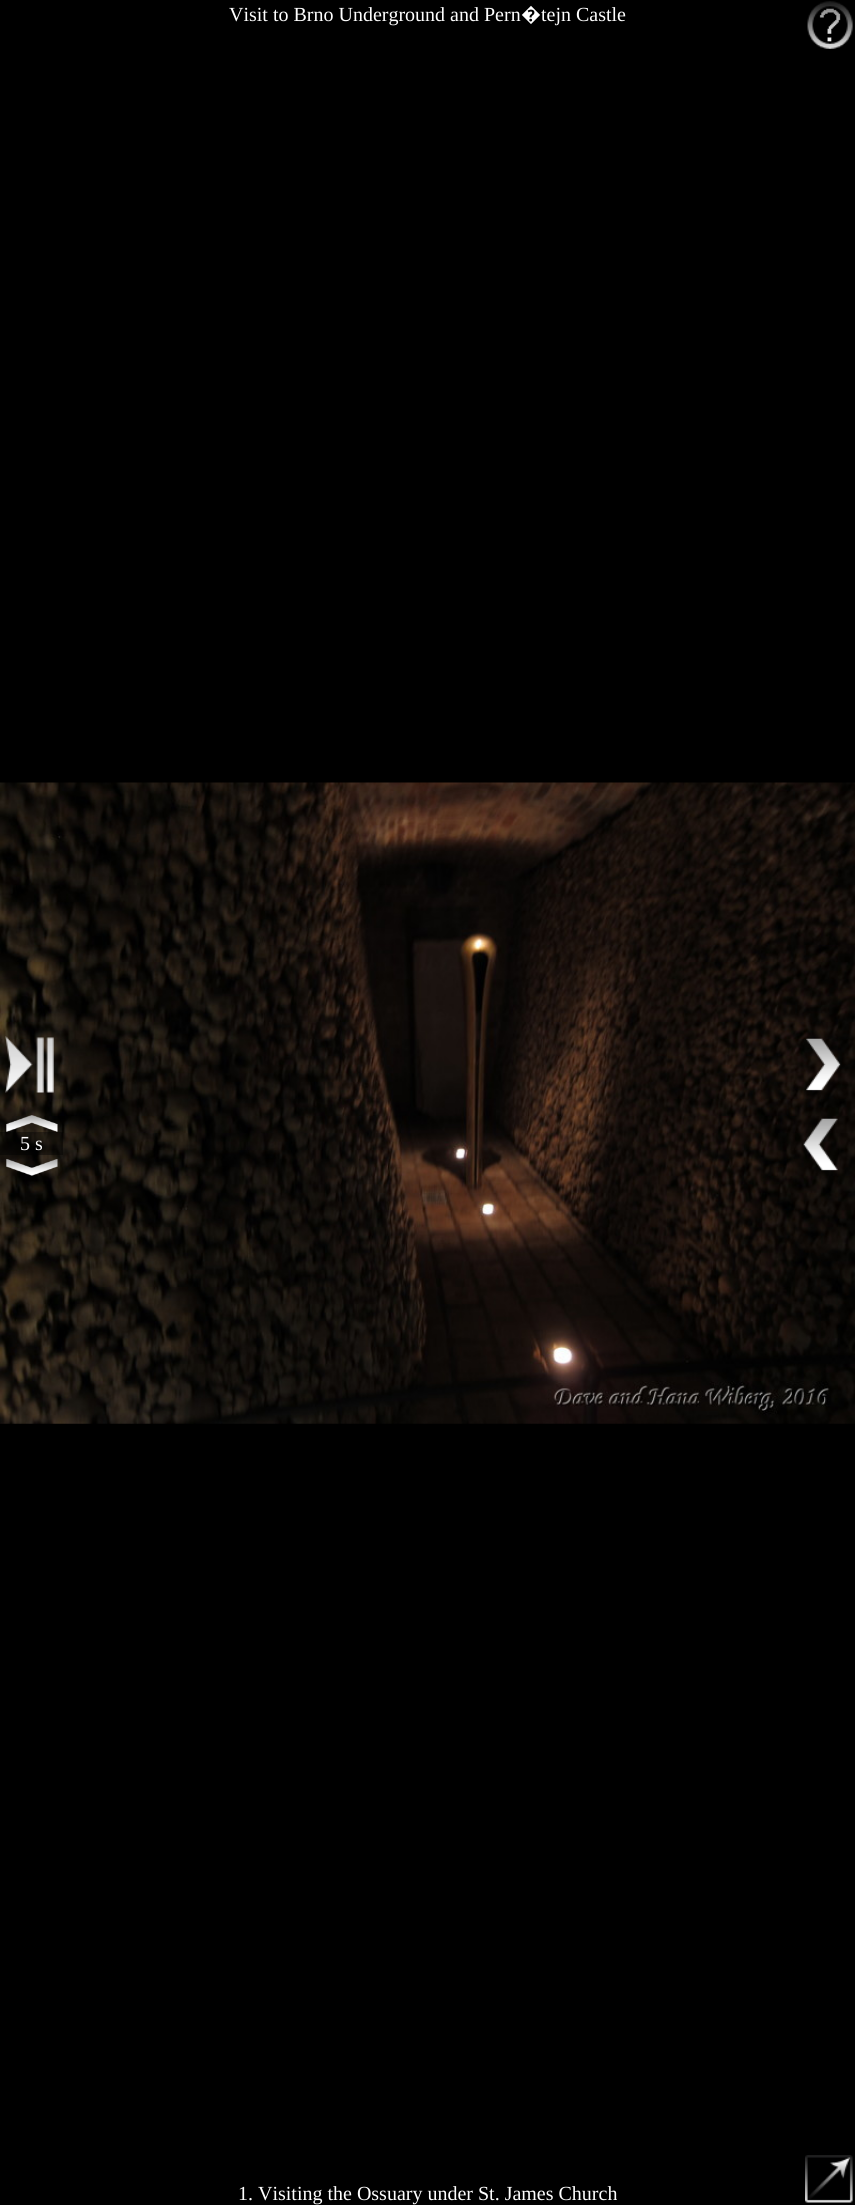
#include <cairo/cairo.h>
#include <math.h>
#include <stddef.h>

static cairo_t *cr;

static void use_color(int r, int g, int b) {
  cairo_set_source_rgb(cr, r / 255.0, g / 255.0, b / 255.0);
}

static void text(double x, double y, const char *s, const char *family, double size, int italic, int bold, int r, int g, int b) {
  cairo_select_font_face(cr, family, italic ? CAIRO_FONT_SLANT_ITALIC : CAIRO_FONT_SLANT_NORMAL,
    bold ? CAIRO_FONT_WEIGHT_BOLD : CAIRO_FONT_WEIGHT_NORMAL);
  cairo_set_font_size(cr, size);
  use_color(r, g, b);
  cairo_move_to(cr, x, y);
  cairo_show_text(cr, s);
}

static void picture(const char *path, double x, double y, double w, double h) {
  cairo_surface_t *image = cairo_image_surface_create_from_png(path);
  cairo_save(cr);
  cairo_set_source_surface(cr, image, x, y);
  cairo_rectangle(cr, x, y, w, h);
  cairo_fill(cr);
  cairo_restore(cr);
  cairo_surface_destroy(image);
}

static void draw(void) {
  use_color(0, 0, 0);
  cairo_paint(cr);
  picture("img_01.png", 807, 1, 46, 48);
  picture("img_02.png", 0, 782, 855, 642);
  picture("img_03.png", 5, 1036, 49, 57);
  picture("img_04.png", 6, 1115, 52, 17);
  cairo_set_source_rgba(cr, 0, 0, 0, 0.4);
  cairo_rectangle(cr, 0, 1132, 63, 23);
  cairo_fill(cr);
  picture("img_05.png", 6, 1159, 52, 17);
  picture("img_06.png", 806, 1038, 35, 53);
  picture("img_07.png", 803, 1118, 35, 53);
  picture("img_08.png", 805, 2155, 48, 48);
  text(229, 21, "Visit to Brno Underground and Pern", "Liberation Serif", 20, 0, 0, 255, 255, 255);
  text(521, 21, "�", "Noto Sans", 20, 0, 0, 255, 255, 255);
  text(541, 21, "tejn Castle", "Liberation Serif", 20, 0, 0, 255, 255, 255);
  text(20, 1150, "5 s", "Liberation Serif", 20, 0, 0, 255, 255, 255);
  text(238, 2200, "1. Visiting the Ossuary under St. James Church", "Liberation Serif", 20, 0, 0, 255, 255, 255);
}

int main(void) {
  cairo_surface_t *surface = cairo_image_surface_create(CAIRO_FORMAT_RGB24, 855, 2205);
  cr = cairo_create(surface);
  cairo_font_options_t *options = cairo_font_options_create();
  cairo_font_options_set_hint_metrics(options, CAIRO_HINT_METRICS_OFF);
  cairo_font_options_set_hint_style(options, CAIRO_HINT_STYLE_NONE);
  cairo_set_font_options(cr, options);
  cairo_set_miter_limit(cr, 4);
  draw();
  cairo_surface_write_to_png(surface, "out.png");
  cairo_font_options_destroy(options);
  cairo_destroy(cr);
  cairo_surface_destroy(surface);
  return 0;
}
